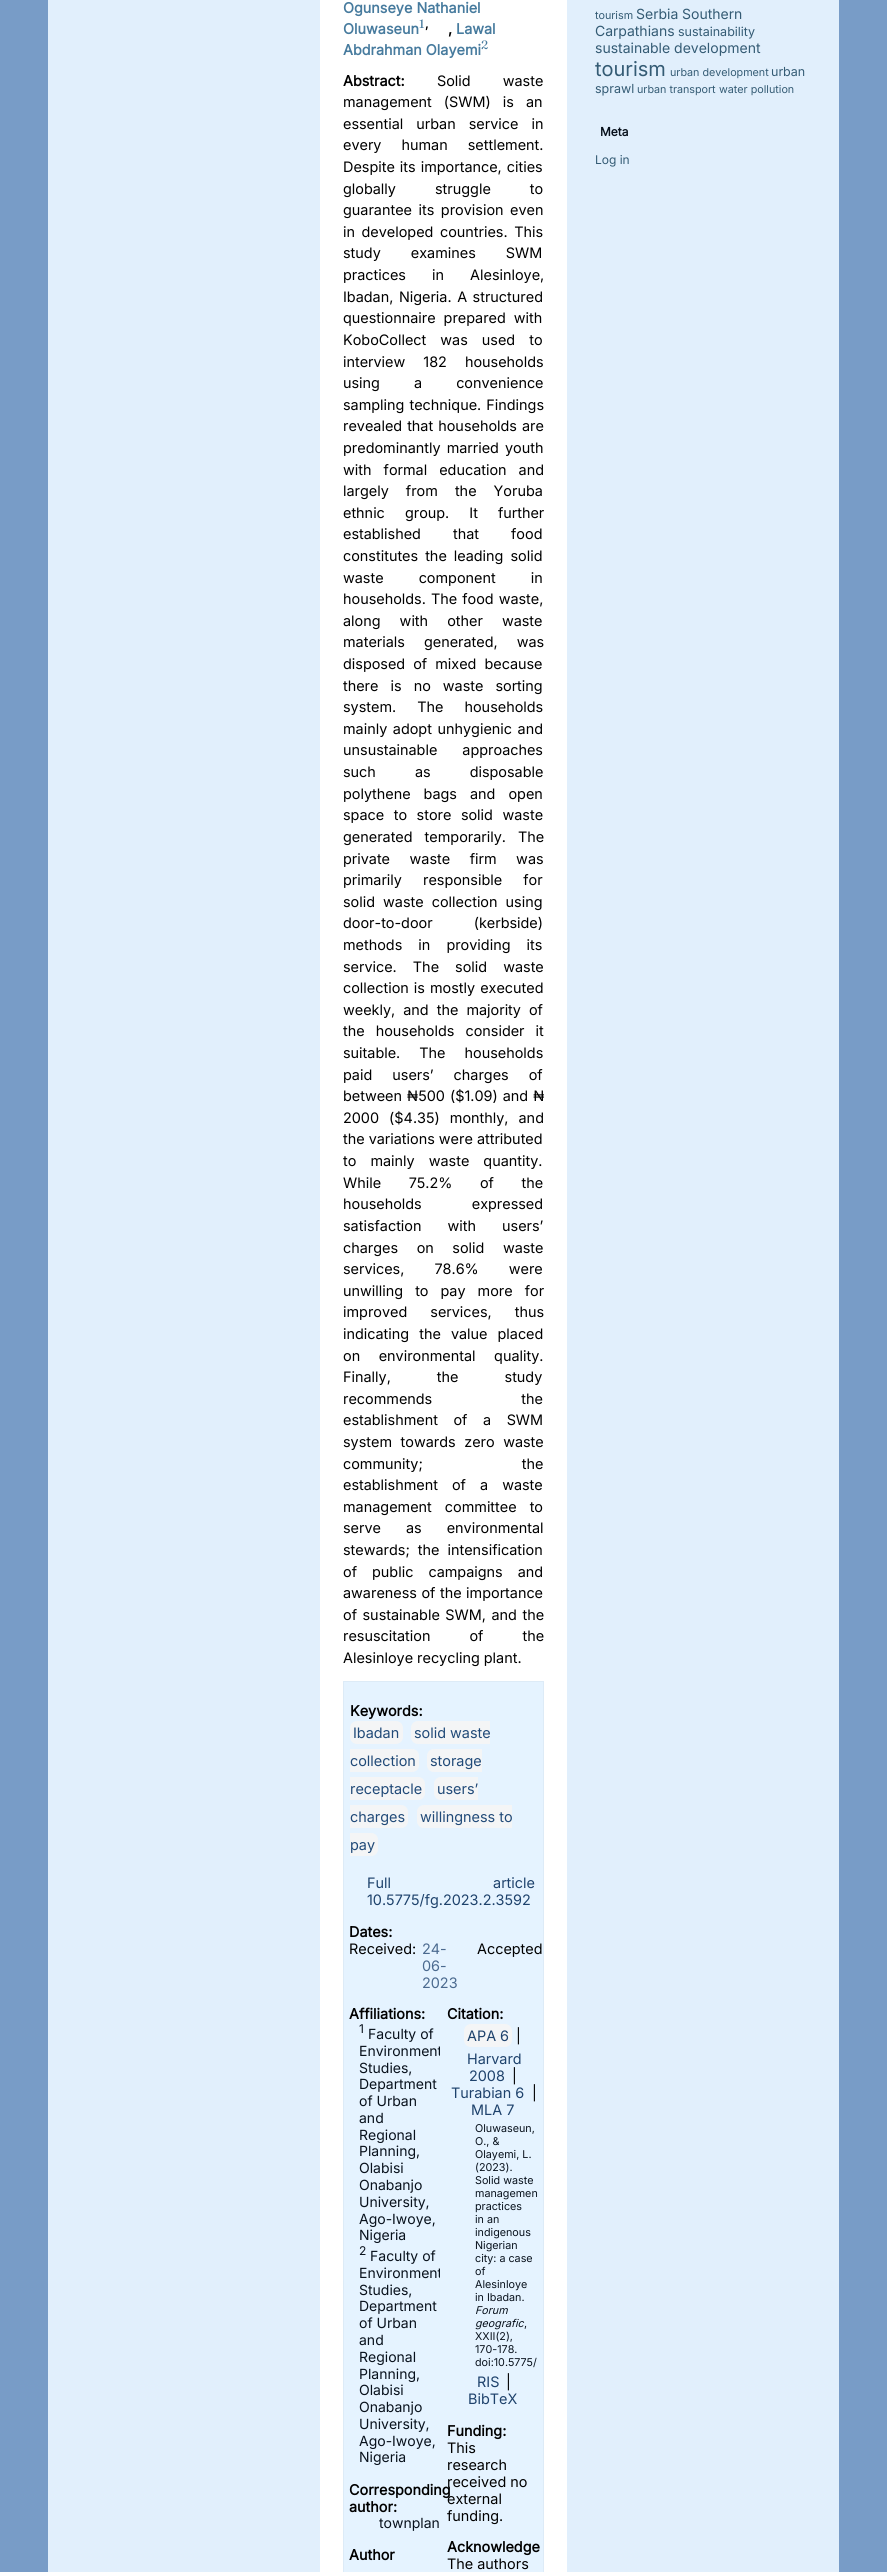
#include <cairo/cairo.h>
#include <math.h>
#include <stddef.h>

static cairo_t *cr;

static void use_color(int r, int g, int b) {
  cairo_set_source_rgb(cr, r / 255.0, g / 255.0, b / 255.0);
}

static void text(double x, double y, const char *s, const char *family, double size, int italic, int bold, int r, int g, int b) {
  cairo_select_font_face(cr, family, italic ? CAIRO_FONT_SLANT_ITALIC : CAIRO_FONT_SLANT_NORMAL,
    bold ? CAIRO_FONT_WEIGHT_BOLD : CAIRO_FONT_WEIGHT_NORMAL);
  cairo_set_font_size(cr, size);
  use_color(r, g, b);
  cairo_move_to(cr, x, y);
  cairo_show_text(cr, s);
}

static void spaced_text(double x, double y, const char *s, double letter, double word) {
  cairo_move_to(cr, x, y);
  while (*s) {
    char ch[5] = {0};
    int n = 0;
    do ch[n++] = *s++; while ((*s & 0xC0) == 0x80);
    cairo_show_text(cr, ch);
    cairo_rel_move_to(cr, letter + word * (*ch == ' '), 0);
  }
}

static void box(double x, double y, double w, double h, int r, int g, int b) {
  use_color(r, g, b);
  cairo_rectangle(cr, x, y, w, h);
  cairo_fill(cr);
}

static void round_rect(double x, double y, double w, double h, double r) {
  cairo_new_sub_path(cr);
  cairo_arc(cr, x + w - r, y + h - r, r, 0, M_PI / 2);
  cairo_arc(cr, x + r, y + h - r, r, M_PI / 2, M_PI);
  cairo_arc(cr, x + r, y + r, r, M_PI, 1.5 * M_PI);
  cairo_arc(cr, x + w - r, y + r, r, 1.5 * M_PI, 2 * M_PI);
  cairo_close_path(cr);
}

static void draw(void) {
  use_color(120, 156, 199);
  cairo_paint(cr);
  box(48, 0, 260, 2572, 225, 239, 252);
  box(308, 0, 531, 2572, 225, 239, 252);
  box(320, 0, 247, 2572, 255, 255, 255);
  use_color(229, 243, 255);
  cairo_rectangle(cr, 343.5, 1681.5, 200, 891);
  cairo_fill_preserve(cr);
  use_color(221, 235, 247);
  cairo_set_line_width(cr, 1);
  cairo_stroke(cr);
  use_color(244, 245, 246);
  round_rect(350, 1721, 53, 23, 7);
  cairo_fill(cr);
  cairo_new_path(cr);
  cairo_move_to(cr, 418, 1721);
  cairo_line_to(cr, 490, 1721);
  cairo_line_to(cr, 490, 1744);
  cairo_line_to(cr, 418, 1744);
  cairo_curve_to(cr, 414, 1744, 411, 1741, 411, 1737);
  cairo_line_to(cr, 411, 1728);
  cairo_curve_to(cr, 411, 1724, 414, 1721, 418, 1721);
  cairo_close_path(cr);
  cairo_fill(cr);
  cairo_new_path(cr);
  cairo_move_to(cr, 350, 1749);
  cairo_line_to(cr, 412, 1749);
  cairo_curve_to(cr, 416, 1749, 419, 1752, 419, 1756);
  cairo_line_to(cr, 419, 1765);
  cairo_curve_to(cr, 419, 1769, 416, 1772, 412, 1772);
  cairo_line_to(cr, 350, 1772);
  cairo_close_path(cr);
  cairo_fill(cr);
  cairo_new_path(cr);
  cairo_move_to(cr, 434, 1749);
  cairo_line_to(cr, 482, 1749);
  cairo_line_to(cr, 482, 1772);
  cairo_line_to(cr, 434, 1772);
  cairo_curve_to(cr, 430, 1772, 427, 1769, 427, 1765);
  cairo_line_to(cr, 427, 1756);
  cairo_curve_to(cr, 427, 1752, 430, 1749, 434, 1749);
  cairo_close_path(cr);
  cairo_fill(cr);
  cairo_new_path(cr);
  cairo_move_to(cr, 350, 1777);
  cairo_line_to(cr, 418, 1777);
  cairo_curve_to(cr, 422, 1777, 425, 1780, 425, 1784);
  cairo_line_to(cr, 425, 1793);
  cairo_curve_to(cr, 425, 1797, 422, 1800, 418, 1800);
  cairo_line_to(cr, 350, 1800);
  cairo_close_path(cr);
  cairo_fill(cr);
  cairo_new_path(cr);
  cairo_move_to(cr, 441, 1777);
  cairo_line_to(cr, 478, 1777);
  cairo_line_to(cr, 478, 1800);
  cairo_line_to(cr, 441, 1800);
  cairo_curve_to(cr, 437, 1800, 434, 1797, 434, 1793);
  cairo_line_to(cr, 434, 1784);
  cairo_curve_to(cr, 434, 1780, 437, 1777, 441, 1777);
  cairo_close_path(cr);
  cairo_fill(cr);
  cairo_new_path(cr);
  cairo_move_to(cr, 350, 1805);
  cairo_line_to(cr, 401, 1805);
  cairo_curve_to(cr, 405, 1805, 408, 1808, 408, 1812);
  cairo_line_to(cr, 408, 1821);
  cairo_curve_to(cr, 408, 1825, 405, 1828, 401, 1828);
  cairo_line_to(cr, 350, 1828);
  cairo_close_path(cr);
  cairo_fill(cr);
  cairo_new_path(cr);
  cairo_move_to(cr, 424, 1805);
  cairo_line_to(cr, 512, 1805);
  cairo_line_to(cr, 512, 1828);
  cairo_line_to(cr, 424, 1828);
  cairo_curve_to(cr, 420, 1828, 417, 1825, 417, 1821);
  cairo_line_to(cr, 417, 1812);
  cairo_curve_to(cr, 417, 1808, 420, 1805, 424, 1805);
  cairo_close_path(cr);
  cairo_fill(cr);
  cairo_new_path(cr);
  cairo_move_to(cr, 350, 1833);
  cairo_line_to(cr, 371, 1833);
  cairo_curve_to(cr, 375, 1833, 378, 1836, 378, 1840);
  cairo_line_to(cr, 378, 1849);
  cairo_curve_to(cr, 378, 1853, 375, 1856, 371, 1856);
  cairo_line_to(cr, 350, 1856);
  cairo_close_path(cr);
  cairo_fill(cr);
  round_rect(464, 2024, 48, 23, 7);
  cairo_fill(cr);
  text(343, 13, "Ogunseye Nathaniel", "Inter", 14.4, 0, 1, 71, 123, 158);
  text(343, 34, "Oluwaseun", "Inter", 14.4, 0, 1, 71, 123, 158);
  text(419, 28, "1", "Fraunces", 12, 0, 0, 71, 123, 158);
  text(425, 28, ",", "Inter", 12, 0, 1, 0, 0, 0);
  text(456, 34, "Lawal", "Inter", 14.4, 0, 1, 71, 123, 158);
  text(448, 34, ",", "Inter", 14.4, 0, 1, 0, 0, 0);
  text(343, 55, "Abdrahman Olayemi", "Inter", 14.4, 0, 1, 71, 123, 158);
  text(481, 49, "2", "Fraunces", 12, 0, 0, 71, 123, 158);
  text(343, 86, "Abstract:", "Inter", 14.4, 0, 1, 0, 0, 0);
  cairo_select_font_face(cr, "Inter", CAIRO_FONT_SLANT_NORMAL, CAIRO_FONT_WEIGHT_NORMAL);
  spaced_text(437, 86, "Solid waste", 0, 28);
  spaced_text(343, 107, "management (SWM) is an", 0, 8);
  spaced_text(343, 129, "essential urban service in", 0, 9);
  spaced_text(343, 150, "every human settlement.", 0, 16);
  spaced_text(343, 172, "Despite its importance, cities", 0, 1);
  spaced_text(343, 194, "globally struggle to", 0, 35);
  spaced_text(343, 215, "guarantee its provision even", 0, 2.5);
  spaced_text(343, 237, "in developed countries. This", 0, 2.5);
  spaced_text(343, 258, "study examines SWM", 0, 26);
  spaced_text(343, 280, "practices in Alesinloye,", 0, 22);
  spaced_text(343, 302, "Ibadan, Nigeria. A structured", 0, 1.5);
  spaced_text(343, 323, "questionnaire prepared with", 0, 4);
  spaced_text(343, 345, "KoboCollect was used to", 0, 10);
  spaced_text(343, 367, "interview 182 households", 0, 14);
  spaced_text(343, 388, "using a convenience", 0, 30);
  spaced_text(343, 410, "sampling technique. Findings", 0, 1);
  spaced_text(343, 431, "revealed that households are", 0, 1);
  spaced_text(343, 453, "predominantly married youth", 0, 2);
  spaced_text(343, 475, "with formal education and", 0, 8);
  spaced_text(343, 496, "largely from the Yoruba", 0, 13);
  spaced_text(343, 518, "ethnic group. It further", 0, 16);
  spaced_text(343, 539, "established that food", 0, 28);
  spaced_text(343, 561, "constitutes the leading solid", 0, 3);
  spaced_text(343, 583, "waste component in", 0, 31);
  spaced_text(343, 604, "households. The food waste,", 0, 1);
  spaced_text(343, 626, "along with other waste", 0, 15);
  spaced_text(343, 647, "materials generated, was", 0, 15);
  spaced_text(343, 669, "disposed of mixed because", 0, 4);
  spaced_text(343, 691, "there is no waste sorting", 0, 8);
  spaced_text(343, 712, "system. The households", 0, 17);
  spaced_text(343, 734, "mainly adopt unhygienic and", 0, 1.5);
  spaced_text(343, 755, "unsustainable approaches", 0, 21);
  spaced_text(343, 777, "such as disposable", 0, 35);
  spaced_text(343, 799, "polythene bags and open", 0, 9);
  spaced_text(343, 820, "space to store solid waste", 0, 5.5);
  spaced_text(343, 842, "generated temporarily. The", 0, 8);
  spaced_text(343, 864, "private waste firm was", 0, 15.5);
  spaced_text(343, 885, "primarily responsible for", 0, 17);
  spaced_text(343, 907, "solid waste collection using", 0, 4);
  spaced_text(343, 928, "door-to-door (kerbside)", 0, 37);
  spaced_text(343, 950, "methods in providing its", 0, 12);
  spaced_text(343, 972, "service. The solid waste", 0, 12);
  spaced_text(343, 993, "collection is mostly executed", 0, 1);
  spaced_text(343, 1015, "weekly, and the majority of", 0, 4);
  spaced_text(343, 1036, "the households consider it", 0, 7);
  spaced_text(343, 1058, "suitable. The households", 0, 15);
  spaced_text(343, 1080, "paid users’ charges of", 0, 16);
  spaced_text(343, 1101, "between ₦500 ($1.09) and ₦", 0, 1);
  spaced_text(343, 1123, "2000 ($4.35) monthly, and", 0, 6);
  text(343, 1144, "the variations were attributed", "Inter", 14.4, 0, 0, 0, 0, 0);
  spaced_text(343, 1166, "to mainly waste quantity.", 0, 10);
  spaced_text(343, 1188, "While 75.2% of the", 0, 23.5);
  spaced_text(343, 1209, "households expressed", 0, 46);
  spaced_text(343, 1231, "satisfaction with users’", 0, 22);
  spaced_text(343, 1253, "charges on solid waste", 0, 14.5);
  spaced_text(343, 1274, "services, 78.6% were", 0, 26);
  spaced_text(343, 1296, "unwilling to pay more for", 0, 8);
  spaced_text(343, 1317, "improved services, thus", 0, 19);
  spaced_text(343, 1339, "indicating the value placed", 0, 6);
  spaced_text(343, 1361, "on environmental quality.", 0, 14.5);
  spaced_text(343, 1382, "Finally, the study", 0, 42);
  spaced_text(343, 1404, "recommends the", 0, 85);
  spaced_text(343, 1425, "establishment of a SWM", 0, 11.5);
  spaced_text(343, 1447, "system towards zero waste", 0, 4.5);
  spaced_text(343, 1469, "community; the", 0, 95);
  spaced_text(343, 1490, "establishment of a waste", 0, 10);
  spaced_text(343, 1512, "management committee to", 0, 9);
  spaced_text(343, 1533, "serve as environmental", 0, 21);
  spaced_text(343, 1555, "stewards; the intensification", 0, 4);
  spaced_text(343, 1577, "of public campaigns and", 0, 11);
  spaced_text(343, 1598, "awareness of the importance", 0, 0.5);
  spaced_text(343, 1620, "of sustainable SWM, and the", 0, 1.5);
  spaced_text(343, 1641, "resuscitation of the", 0, 35);
  text(343, 1663, "Alesinloye recycling plant.", "Inter", 14.4, 0, 0, 0, 0, 0);
  text(350, 1716, "Keywords:", "Inter", 14.4, 0, 1, 0, 0, 0);
  text(353, 1738, "Ibadan", "Inter", 14.4, 0, 0, 33, 74, 120);
  text(414, 1738, "solid waste", "Inter", 14.4, 0, 0, 33, 74, 120);
  text(350, 1766, "collection", "Inter", 14.4, 0, 0, 33, 74, 120);
  text(430, 1766, "storage", "Inter", 14.4, 0, 0, 33, 74, 120);
  text(350, 1794, "receptacle", "Inter", 14.4, 0, 0, 33, 74, 120);
  text(437, 1794, "users’", "Inter", 14.4, 0, 0, 33, 74, 120);
  text(350, 1822, "charges", "Inter", 14.4, 0, 0, 33, 74, 120);
  text(420, 1822, "willingness to", "Inter", 14.4, 0, 0, 33, 74, 120);
  text(350, 1850, "pay", "Inter", 14.4, 0, 0, 33, 74, 120);
  use_color(30, 66, 108);
  spaced_text(367, 1888, "Full article", 0, 98);
  text(367, 1905, "10.5775/fg.2023.2.3592", "Inter", 14.4, 0, 0, 30, 66, 108);
  text(349, 1937, "Dates:", "Inter", 14.4, 0, 1, 0, 0, 0);
  text(349, 1954, "Received:", "Inter", 14.4, 0, 0, 0, 0, 0);
  text(422, 1954, "24-", "Inter", 14.4, 0, 0, 75, 106, 143);
  text(422, 1971, "06-", "Inter", 14.4, 0, 0, 75, 106, 143);
  text(422, 1988, "2023", "Inter", 14.4, 0, 0, 75, 106, 143);
  text(477, 1954, "Accepted", "Inter", 14.4, 0, 0, 0, 0, 0);
  text(349, 2019, "Affiliations:", "Inter", 14.4, 0, 1, 0, 0, 0);
  text(359, 2033, "1", "Inter", 12, 0, 0, 8, 17, 28);
  text(368, 2039, "Faculty of", "Inter", 14, 0, 0, 8, 17, 28);
  cairo_save(cr);
  cairo_rectangle(cr, 349, 2022, 91, 222);
  cairo_clip(cr);
  text(359, 2056, "Environment", "Inter", 14, 0, 0, 8, 17, 28);
  cairo_restore(cr);
  text(359, 2073, "Studies,", "Inter", 14, 0, 0, 8, 17, 28);
  text(359, 2089, "Department", "Inter", 14, 0, 0, 8, 17, 28);
  text(359, 2106, "of Urban", "Inter", 14, 0, 0, 8, 17, 28);
  text(359, 2123, "and", "Inter", 14, 0, 0, 8, 17, 28);
  text(359, 2140, "Regional", "Inter", 14, 0, 0, 8, 17, 28);
  text(359, 2156, "Planning,", "Inter", 14, 0, 0, 8, 17, 28);
  text(359, 2173, "Olabisi", "Inter", 14, 0, 0, 8, 17, 28);
  text(359, 2190, "Onabanjo", "Inter", 14, 0, 0, 8, 17, 28);
  text(359, 2207, "University,", "Inter", 14, 0, 0, 8, 17, 28);
  text(359, 2224, "Ago-Iwoye,", "Inter", 14, 0, 0, 8, 17, 28);
  text(359, 2240, "Nigeria", "Inter", 14, 0, 0, 8, 17, 28);
  text(359, 2255, "2", "Inter", 12, 0, 0, 8, 17, 28);
  text(370, 2261, "Faculty of", "Inter", 14, 0, 0, 8, 17, 28);
  cairo_save(cr);
  cairo_rectangle(cr, 349, 2244, 91, 222);
  cairo_clip(cr);
  text(359, 2278, "Environment", "Inter", 14, 0, 0, 8, 17, 28);
  cairo_restore(cr);
  text(359, 2295, "Studies,", "Inter", 14, 0, 0, 8, 17, 28);
  text(359, 2311, "Department", "Inter", 14, 0, 0, 8, 17, 28);
  text(359, 2328, "of Urban", "Inter", 14, 0, 0, 8, 17, 28);
  text(359, 2345, "and", "Inter", 14, 0, 0, 8, 17, 28);
  text(359, 2362, "Regional", "Inter", 14, 0, 0, 8, 17, 28);
  text(359, 2379, "Planning,", "Inter", 14, 0, 0, 8, 17, 28);
  text(359, 2395, "Olabisi", "Inter", 14, 0, 0, 8, 17, 28);
  text(359, 2412, "Onabanjo", "Inter", 14, 0, 0, 8, 17, 28);
  text(359, 2429, "University,", "Inter", 14, 0, 0, 8, 17, 28);
  text(359, 2446, "Ago-Iwoye,", "Inter", 14, 0, 0, 8, 17, 28);
  text(359, 2462, "Nigeria", "Inter", 14, 0, 0, 8, 17, 28);
  text(349, 2495, "Corresponding", "Inter", 14.4, 0, 1, 0, 0, 0);
  text(349, 2512, "author:", "Inter", 14.4, 0, 1, 0, 0, 0);
  text(379, 2528, "townplan", "Inter", 14, 0, 0, 8, 17, 28);
  text(349, 2560, "Author", "Inter", 14.4, 0, 1, 0, 0, 0);
  text(447, 2019, "Citation:", "Inter", 14.4, 0, 1, 0, 0, 0);
  text(467, 2041, "APA 6", "Inter", 14.4, 0, 0, 30, 66, 108);
  text(516, 2041, "|", "Inter", 14.4, 0, 0, 0, 0, 0);
  text(467, 2064, "Harvard", "Inter", 14.4, 0, 0, 30, 66, 108);
  text(469, 2081, "2008", "Inter", 14.4, 0, 0, 30, 66, 108);
  text(512, 2081, "|", "Inter", 14.4, 0, 0, 0, 0, 0);
  text(451, 2098, "Turabian 6", "Inter", 14.4, 0, 0, 30, 66, 108);
  text(532, 2098, "|", "Inter", 14.4, 0, 0, 0, 0, 0);
  text(471, 2115, "MLA 7", "Inter", 14.4, 0, 0, 30, 66, 108);
  text(475, 2132, "Oluwaseun,", "Inter", 10.75, 0, 0, 8, 17, 28);
  text(475, 2145, "O., &", "Inter", 10.75, 0, 0, 8, 17, 28);
  text(475, 2158, "Olayemi, L.", "Inter", 10.75, 0, 0, 8, 17, 28);
  text(475, 2171, "(2023).", "Inter", 10.75, 0, 0, 8, 17, 28);
  text(475, 2184, "Solid waste", "Inter", 10.75, 0, 0, 8, 17, 28);
  text(475, 2197, "managemen", "Inter", 10.75, 0, 0, 8, 17, 28);
  text(475, 2210, "practices", "Inter", 10.75, 0, 0, 8, 17, 28);
  text(475, 2223, "in an", "Inter", 10.75, 0, 0, 8, 17, 28);
  text(475, 2236, "indigenous", "Inter", 10.75, 0, 0, 8, 17, 28);
  text(475, 2249, "Nigerian", "Inter", 10.75, 0, 0, 8, 17, 28);
  text(475, 2262, "city: a case", "Inter", 10.75, 0, 0, 8, 17, 28);
  text(475, 2275, "of", "Inter", 10.75, 0, 0, 8, 17, 28);
  text(475, 2288, "Alesinloye", "Inter", 10.75, 0, 0, 8, 17, 28);
  text(475, 2301, "in Ibadan.", "Inter", 10.75, 0, 0, 8, 17, 28);
  text(475, 2314, "Forum", "Inter", 10.75, 1, 0, 8, 17, 28);
  text(475, 2327, "geografic", "Inter", 10.75, 1, 0, 8, 17, 28);
  text(524, 2327, ",", "Inter", 10.75, 0, 0, 8, 17, 28);
  text(475, 2340, "XXII(2),", "Inter", 10.75, 0, 0, 8, 17, 28);
  text(475, 2353, "170-178.", "Inter", 10.75, 0, 0, 8, 17, 28);
  text(475, 2366, "doi:10.5775/", "Inter", 10.75, 0, 0, 8, 17, 28);
  text(477, 2387, "RIS", "Inter", 14.4, 0, 0, 30, 66, 108);
  text(506, 2387, "|", "Inter", 14.4, 0, 0, 0, 0, 0);
  text(468, 2404, "BibTeX", "Inter", 14.4, 0, 0, 30, 66, 108);
  text(447, 2436, "Funding:", "Inter", 14.4, 0, 1, 0, 0, 0);
  text(447, 2453, "This", "Inter", 14.4, 0, 0, 0, 0, 0);
  text(447, 2470, "research", "Inter", 14.4, 0, 0, 0, 0, 0);
  text(447, 2487, "received no", "Inter", 14.4, 0, 0, 0, 0, 0);
  text(447, 2504, "external", "Inter", 14.4, 0, 0, 0, 0, 0);
  text(447, 2521, "funding.", "Inter", 14.4, 0, 0, 0, 0, 0);
  text(447, 2552, "Acknowledge", "Inter", 14.4, 0, 1, 0, 0, 0);
  text(447, 2569, "The authors", "Inter", 14.4, 0, 0, 0, 0, 0);
  text(595, 19, "tourism", "Inter", 10.75, 0, 0, 52, 91, 116);
  text(636, 19, "Serbia", "Inter", 14, 0, 0, 52, 91, 116);
  text(682, 19, "Southern", "Inter", 14, 0, 0, 52, 91, 116);
  text(595, 36, "Carpathians", "Inter", 14, 0, 0, 52, 91, 116);
  text(678, 36, "sustainability", "Inter", 12.5, 0, 0, 52, 91, 116);
  text(595, 53, "sustainable development", "Inter", 14, 0, 0, 52, 91, 116);
  text(595, 76, "tourism", "Inter", 20, 0, 0, 52, 91, 116);
  text(670, 76, "urban development", "Inter", 10.75, 0, 0, 52, 91, 116);
  text(771, 76, "urban", "Inter", 12.5, 0, 0, 52, 91, 116);
  text(595, 93, "sprawl", "Inter", 12.5, 0, 0, 52, 91, 116);
  text(637, 93, "urban transport", "Inter", 10.75, 0, 0, 52, 91, 116);
  text(719, 93, "water pollution", "Inter", 10.75, 0, 0, 52, 91, 116);
  text(600, 136, "Meta", "Inter", 12, 0, 1, 8, 17, 28);
  text(595, 164, "Log in", "Inter", 12, 0, 0, 52, 91, 116);
}

int main(void) {
  cairo_surface_t *surface = cairo_image_surface_create(CAIRO_FORMAT_RGB24, 887, 2572);
  cr = cairo_create(surface);
  cairo_font_options_t *options = cairo_font_options_create();
  cairo_font_options_set_hint_metrics(options, CAIRO_HINT_METRICS_OFF);
  cairo_font_options_set_hint_style(options, CAIRO_HINT_STYLE_NONE);
  cairo_set_font_options(cr, options);
  cairo_set_miter_limit(cr, 4);
  draw();
  cairo_surface_write_to_png(surface, "out.png");
  cairo_font_options_destroy(options);
  cairo_destroy(cr);
  cairo_surface_destroy(surface);
  return 0;
}
